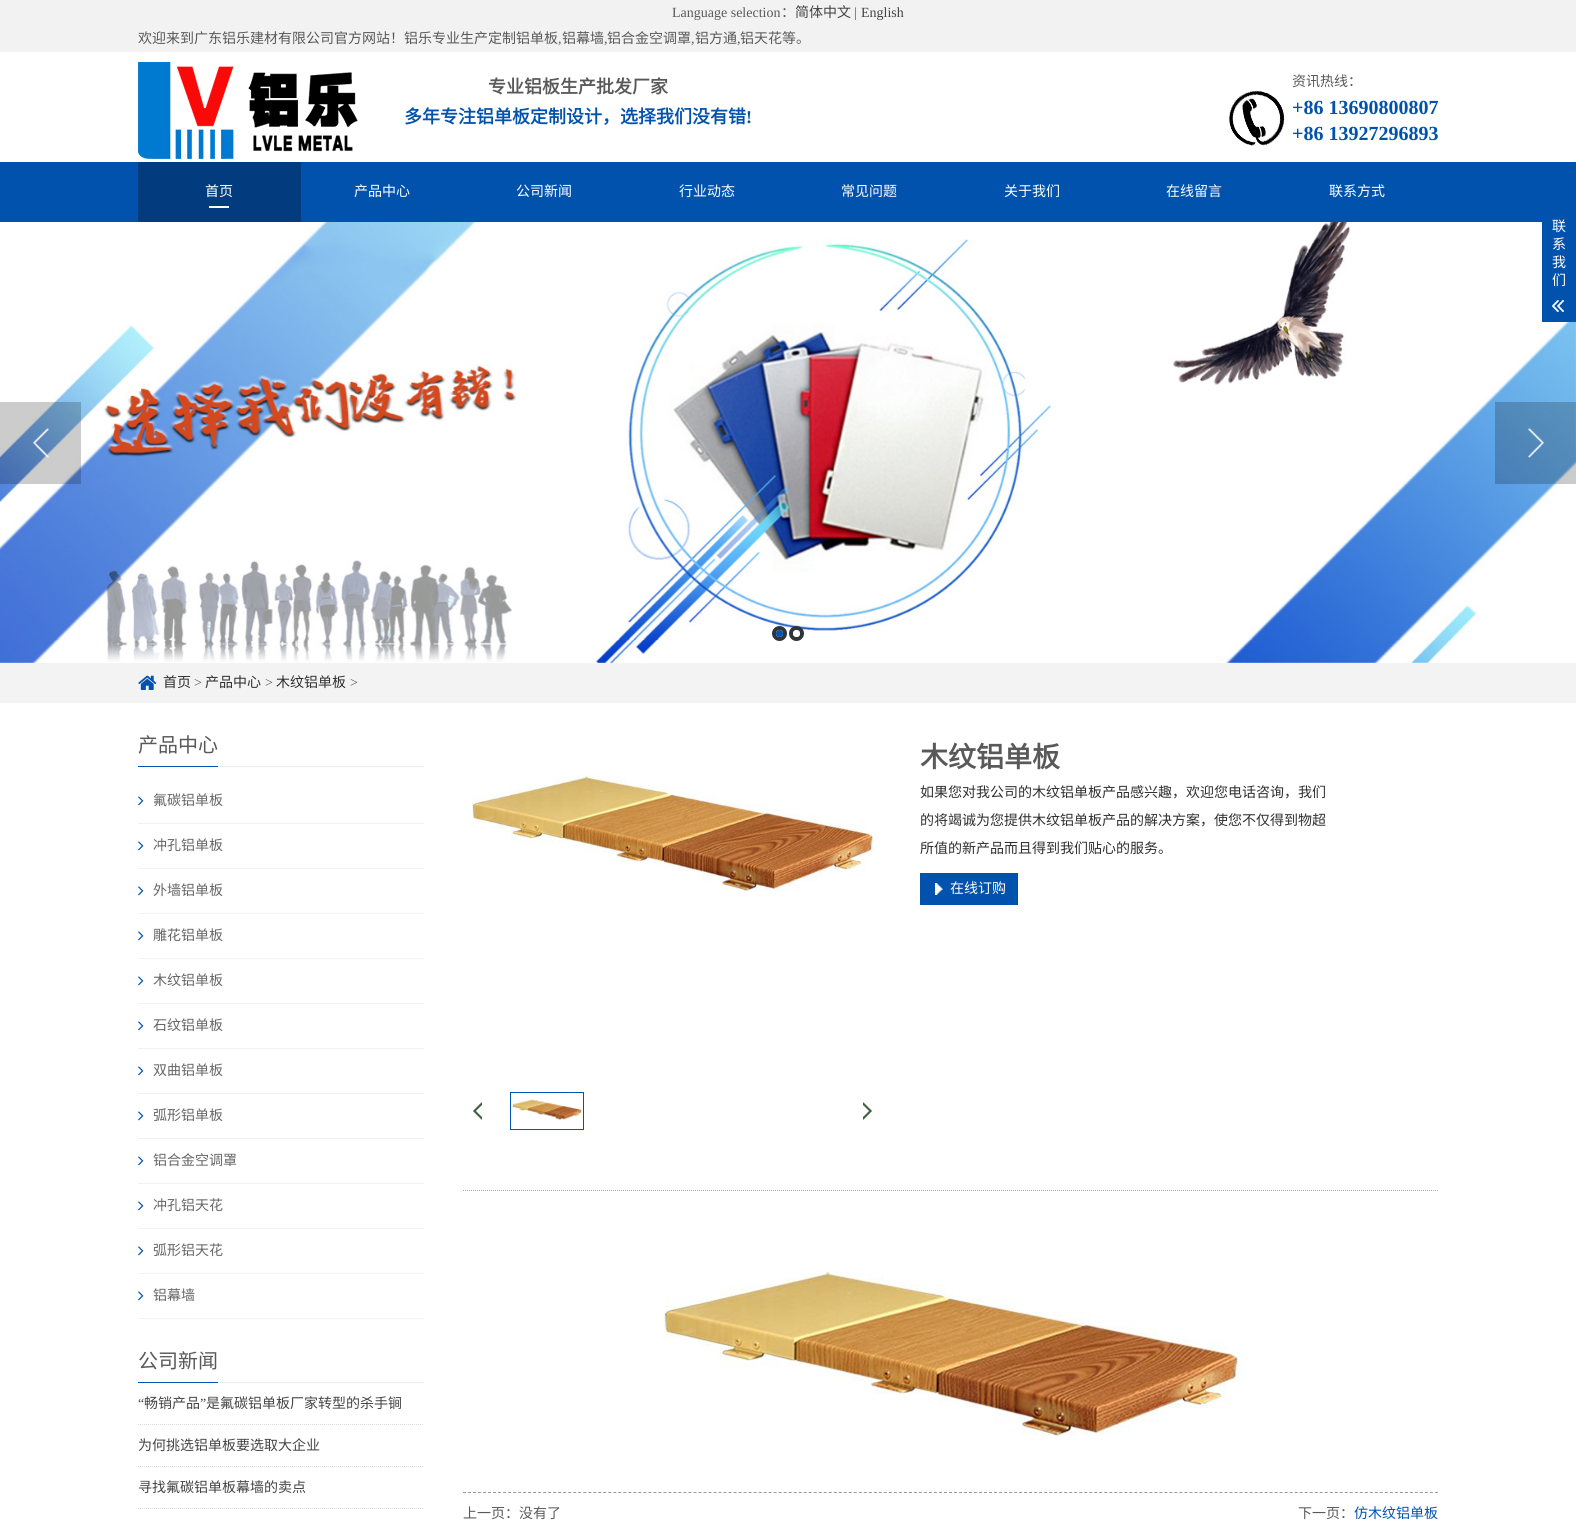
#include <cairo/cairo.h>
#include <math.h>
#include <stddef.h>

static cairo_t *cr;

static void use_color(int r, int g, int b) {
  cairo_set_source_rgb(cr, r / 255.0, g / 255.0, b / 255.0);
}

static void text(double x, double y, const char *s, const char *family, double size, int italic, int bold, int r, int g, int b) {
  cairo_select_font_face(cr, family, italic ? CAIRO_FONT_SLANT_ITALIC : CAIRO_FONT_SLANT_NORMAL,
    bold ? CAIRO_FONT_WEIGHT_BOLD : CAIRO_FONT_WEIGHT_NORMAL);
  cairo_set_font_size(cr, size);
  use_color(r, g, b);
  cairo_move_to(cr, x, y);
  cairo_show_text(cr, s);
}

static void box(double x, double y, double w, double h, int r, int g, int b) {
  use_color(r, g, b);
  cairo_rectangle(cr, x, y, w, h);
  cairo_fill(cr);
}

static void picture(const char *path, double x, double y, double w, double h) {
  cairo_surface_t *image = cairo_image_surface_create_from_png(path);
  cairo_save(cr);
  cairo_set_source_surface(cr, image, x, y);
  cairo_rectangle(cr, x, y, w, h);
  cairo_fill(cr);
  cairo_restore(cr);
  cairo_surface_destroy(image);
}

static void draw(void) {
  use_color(255, 255, 255);
  cairo_paint(cr);
  box(0, 0, 1576, 52, 242, 242, 242);
  picture("img_01.png", 138, 62, 220, 97);
  picture("img_02.png", 1229, 90, 56, 56);
  box(0, 162, 1576, 60, 1, 82, 173);
  box(138, 162, 163, 60, 2, 60, 126);
  box(209, 206, 20, 2, 255, 255, 255);
  picture("img_04.png", 0, 222, 1576, 441);
  box(1542, 222, 34, 100, 1, 82, 173);
  picture("img_03.png", 1552, 300, 12, 12);
  cairo_set_source_rgba(cr, 0, 0, 0, 0.2);
  cairo_rectangle(cr, 0, 402, 81, 82);
  cairo_fill(cr);
  picture("img_05.png", 33, 428, 16, 30);
  cairo_rectangle(cr, 1495, 402, 81, 82);
  cairo_fill(cr);
  picture("img_06.png", 1528, 428, 16, 30);
  cairo_arc(cr, 779.5, 633.5, 5.5, 0, 2 * M_PI);
  use_color(50, 52, 59);
  cairo_set_line_width(cr, 4);
  cairo_stroke(cr);
  use_color(1, 82, 173);
  cairo_arc(cr, 779.5, 633.5, 3.5, 0, 2 * M_PI);
  cairo_fill(cr);
  cairo_arc(cr, 796.5, 633.5, 5.5, 0, 2 * M_PI);
  use_color(50, 52, 59);
  cairo_stroke(cr);
  use_color(255, 255, 255);
  cairo_arc(cr, 796.5, 633.5, 3.5, 0, 2 * M_PI);
  cairo_fill(cr);
  box(0, 663, 1576, 40, 243, 243, 243);
  picture("img_07.png", 138, 675, 19, 15);
  box(218, 766, 206, 1, 235, 235, 235);
  box(138, 766, 80, 1, 1, 82, 173);
  box(138, 823, 286, 1, 242, 242, 242);
  picture("img_08.png", 138, 796, 6, 10);
  box(138, 868, 286, 1, 242, 242, 242);
  picture("img_08.png", 138, 841, 6, 10);
  box(138, 913, 286, 1, 242, 242, 242);
  picture("img_08.png", 138, 886, 6, 10);
  box(138, 958, 286, 1, 242, 242, 242);
  picture("img_08.png", 138, 931, 6, 10);
  box(138, 1003, 286, 1, 242, 242, 242);
  picture("img_08.png", 138, 976, 6, 10);
  box(138, 1048, 286, 1, 242, 242, 242);
  picture("img_08.png", 138, 1021, 6, 10);
  box(138, 1093, 286, 1, 242, 242, 242);
  picture("img_08.png", 138, 1066, 6, 10);
  box(138, 1138, 286, 1, 242, 242, 242);
  picture("img_08.png", 138, 1111, 6, 10);
  box(138, 1183, 286, 1, 242, 242, 242);
  picture("img_08.png", 138, 1156, 6, 10);
  box(138, 1228, 286, 1, 242, 242, 242);
  picture("img_08.png", 138, 1201, 6, 10);
  box(138, 1273, 286, 1, 242, 242, 242);
  picture("img_08.png", 138, 1246, 6, 10);
  box(138, 1318, 286, 1, 242, 242, 242);
  picture("img_08.png", 138, 1291, 6, 10);
  box(218, 1382, 206, 1, 235, 235, 235);
  box(138, 1382, 80, 1, 1, 82, 173);
  cairo_new_path(cr);
  cairo_move_to(cr, 138, 1424.5);
  cairo_line_to(cr, 424, 1424.5);
  use_color(221, 221, 221);
  cairo_set_line_width(cr, 1);
  cairo_set_dash(cr, (double[]){1, 1}, 2, 0);
  cairo_stroke(cr);
  cairo_new_path(cr);
  cairo_move_to(cr, 138, 1466.5);
  cairo_line_to(cr, 424, 1466.5);
  cairo_stroke(cr);
  cairo_new_path(cr);
  cairo_move_to(cr, 138, 1508.5);
  cairo_line_to(cr, 424, 1508.5);
  cairo_stroke(cr);
  cairo_new_path(cr);
  cairo_move_to(cr, 463, 1190.5);
  cairo_line_to(cr, 1438, 1190.5);
  use_color(169, 169, 169);
  cairo_stroke(cr);
  picture("img_09.png", 472, 775, 403, 116);
  picture("img_10.png", 473, 1102, 9, 18);
  cairo_rectangle(cr, 510.5, 1092.5, 73, 37);
  use_color(1, 82, 173);
  cairo_set_dash(cr, NULL, 0, 0);
  cairo_stroke(cr);
  picture("img_11.png", 512, 1099, 70, 21);
  picture("img_12.png", 863, 1102, 9, 18);
  box(920, 873, 98, 32, 1, 82, 173);
  picture("img_13.png", 935, 883, 8, 12);
  picture("img_14.png", 664, 1271, 577, 165);
  cairo_new_path(cr);
  cairo_move_to(cr, 463, 1492.5);
  cairo_line_to(cr, 1438, 1492.5);
  use_color(153, 153, 153);
  cairo_set_dash(cr, (double[]){3, 2.01}, 2, 0);
  cairo_stroke(cr);
  text(672, 17, "Language selection", "Liberation Serif", 14, 0, 0, 89, 89, 89);
  text(781, 17, "：", "Noto Sans CJK SC", 14, 0, 0, 89, 89, 89);
  text(795, 17, "简体中文", "Noto Sans CJK SC", 14, 0, 0, 68, 68, 68);
  text(854, 17, "|", "Liberation Serif", 14, 0, 0, 89, 89, 89);
  text(861, 17, "English", "Liberation Serif", 14, 0, 0, 68, 68, 68);
  text(138, 43, "欢迎来到广东铝乐建材有限公司官方网站！铝乐专业生产定制铝单板", "Noto Sans CJK SC", 14, 0, 0, 89, 89, 89);
  text(558, 43, ",", "Liberation Serif", 14, 0, 0, 89, 89, 89);
  text(562, 43, "铝幕墙", "Noto Sans CJK SC", 14, 0, 0, 89, 89, 89);
  text(604, 43, ",", "Liberation Serif", 14, 0, 0, 89, 89, 89);
  text(607, 43, "铝合金空调罩", "Noto Sans CJK SC", 14, 0, 0, 89, 89, 89);
  text(691, 43, ",", "Liberation Serif", 14, 0, 0, 89, 89, 89);
  text(695, 43, "铝方通", "Noto Sans CJK SC", 14, 0, 0, 89, 89, 89);
  text(737, 43, ",", "Liberation Serif", 14, 0, 0, 89, 89, 89);
  text(740, 43, "铝天花等。", "Noto Sans CJK SC", 14, 0, 0, 89, 89, 89);
  text(488, 93, "专业铝板生产批发厂家", "Noto Sans CJK SC", 18, 0, 1, 89, 89, 89);
  text(404, 123, "多年专注铝单板定制设计，选择我们没有错", "Noto Sans CJK SC", 18, 0, 1, 1, 82, 173);
  text(746, 123, "!", "Liberation Serif", 18, 0, 1, 1, 82, 173);
  text(1292, 86, "资讯热线：", "Noto Sans CJK SC", 14, 0, 0, 89, 89, 89);
  text(1292, 114, "+86 13690800807", "Liberation Serif", 20, 0, 1, 1, 82, 173);
  text(1292, 140, "+86 13927296893", "Liberation Serif", 20, 0, 1, 1, 82, 173);
  text(205, 196, "首页", "Noto Sans CJK SC", 14, 0, 0, 255, 255, 255);
  text(354, 196, "产品中心", "Noto Sans CJK SC", 14, 0, 0, 255, 255, 255);
  text(516, 196, "公司新闻", "Noto Sans CJK SC", 14, 0, 0, 255, 255, 255);
  text(679, 196, "行业动态", "Noto Sans CJK SC", 14, 0, 0, 255, 255, 255);
  text(841, 196, "常见问题", "Noto Sans CJK SC", 14, 0, 0, 255, 255, 255);
  text(1004, 196, "关于我们", "Noto Sans CJK SC", 14, 0, 0, 255, 255, 255);
  text(1166, 196, "在线留言", "Noto Sans CJK SC", 14, 0, 0, 255, 255, 255);
  text(1329, 196, "联系方式", "Noto Sans CJK SC", 14, 0, 0, 255, 255, 255);
  text(1552, 231, "联", "Noto Sans CJK SC", 14, 0, 0, 255, 255, 255);
  text(1552, 249, "系", "Noto Sans CJK SC", 14, 0, 0, 255, 255, 255);
  text(1552, 267, "我", "Noto Sans CJK SC", 14, 0, 0, 255, 255, 255);
  text(1552, 285, "们", "Noto Sans CJK SC", 14, 0, 0, 255, 255, 255);
  text(163, 687, "首页", "Noto Sans CJK SC", 14, 0, 0, 47, 47, 47);
  text(194, 687, ">", "Liberation Serif", 14, 0, 0, 89, 89, 89);
  text(205, 687, "产品中心", "Noto Sans CJK SC", 14, 0, 0, 47, 47, 47);
  text(265, 687, ">", "Liberation Serif", 14, 0, 0, 89, 89, 89);
  text(276, 687, "木纹铝单板", "Noto Sans CJK SC", 14, 0, 0, 47, 47, 47);
  text(350, 687, ">", "Liberation Serif", 14, 0, 0, 89, 89, 89);
  text(138, 752, "产品中心", "Noto Sans CJK SC", 20, 0, 0, 89, 89, 89);
  text(153, 805, "氟碳铝单板", "Noto Sans CJK SC", 14, 0, 0, 102, 102, 102);
  text(153, 850, "冲孔铝单板", "Noto Sans CJK SC", 14, 0, 0, 102, 102, 102);
  text(153, 895, "外墙铝单板", "Noto Sans CJK SC", 14, 0, 0, 102, 102, 102);
  text(153, 940, "雕花铝单板", "Noto Sans CJK SC", 14, 0, 0, 102, 102, 102);
  text(153, 985, "木纹铝单板", "Noto Sans CJK SC", 14, 0, 0, 102, 102, 102);
  text(153, 1030, "石纹铝单板", "Noto Sans CJK SC", 14, 0, 0, 102, 102, 102);
  text(153, 1075, "双曲铝单板", "Noto Sans CJK SC", 14, 0, 0, 102, 102, 102);
  text(153, 1120, "弧形铝单板", "Noto Sans CJK SC", 14, 0, 0, 102, 102, 102);
  text(153, 1165, "铝合金空调罩", "Noto Sans CJK SC", 14, 0, 0, 102, 102, 102);
  text(153, 1210, "冲孔铝天花", "Noto Sans CJK SC", 14, 0, 0, 102, 102, 102);
  text(153, 1255, "弧形铝天花", "Noto Sans CJK SC", 14, 0, 0, 102, 102, 102);
  text(153, 1300, "铝幕墙", "Noto Sans CJK SC", 14, 0, 0, 102, 102, 102);
  text(138, 1368, "公司新闻", "Noto Sans CJK SC", 20, 0, 0, 89, 89, 89);
  text(138, 1408, "“", "Liberation Serif", 14, 0, 0, 68, 68, 68);
  text(144, 1408, "畅销产品", "Noto Sans CJK SC", 14, 0, 0, 68, 68, 68);
  text(200, 1408, "”", "Liberation Serif", 14, 0, 0, 68, 68, 68);
  text(206, 1408, "是氟碳铝单板厂家转型的杀手锏", "Noto Sans CJK SC", 14, 0, 0, 68, 68, 68);
  text(138, 1450, "为何挑选铝单板要选取大企业", "Noto Sans CJK SC", 14, 0, 0, 68, 68, 68);
  text(138, 1492, "寻找氟碳铝单板幕墙的卖点", "Noto Sans CJK SC", 14, 0, 0, 68, 68, 68);
  text(920, 767, "木纹铝单板", "Noto Sans CJK SC", 28, 0, 1, 89, 89, 89);
  text(920, 797, "如果您对我公司的木纹铝单板产品感兴趣，欢迎您电话咨询，我们", "Noto Sans CJK SC", 14, 0, 0, 47, 47, 47);
  text(920, 825, "的将竭诚为您提供木纹铝单板产品的解决方案，使您不仅得到物超", "Noto Sans CJK SC", 14, 0, 0, 47, 47, 47);
  text(920, 853, "所值的新产品而且得到我们贴心的服务。", "Noto Sans CJK SC", 14, 0, 0, 47, 47, 47);
  text(950, 893, "在线订购", "Noto Sans CJK SC", 14, 0, 0, 255, 255, 255);
  text(463, 1518, "上一页：没有了", "Noto Sans CJK SC", 14, 0, 0, 89, 89, 89);
  text(1298, 1518, "下一页：", "Noto Sans CJK SC", 14, 0, 0, 89, 89, 89);
  text(1354, 1518, "仿木纹铝单板", "Noto Sans CJK SC", 14, 0, 0, 1, 82, 173);
}

int main(void) {
  cairo_surface_t *surface = cairo_image_surface_create(CAIRO_FORMAT_RGB24, 1576, 1530);
  cr = cairo_create(surface);
  cairo_font_options_t *options = cairo_font_options_create();
  cairo_font_options_set_hint_metrics(options, CAIRO_HINT_METRICS_OFF);
  cairo_font_options_set_hint_style(options, CAIRO_HINT_STYLE_NONE);
  cairo_set_font_options(cr, options);
  cairo_set_miter_limit(cr, 4);
  draw();
  cairo_surface_write_to_png(surface, "out.png");
  cairo_font_options_destroy(options);
  cairo_destroy(cr);
  cairo_surface_destroy(surface);
  return 0;
}
